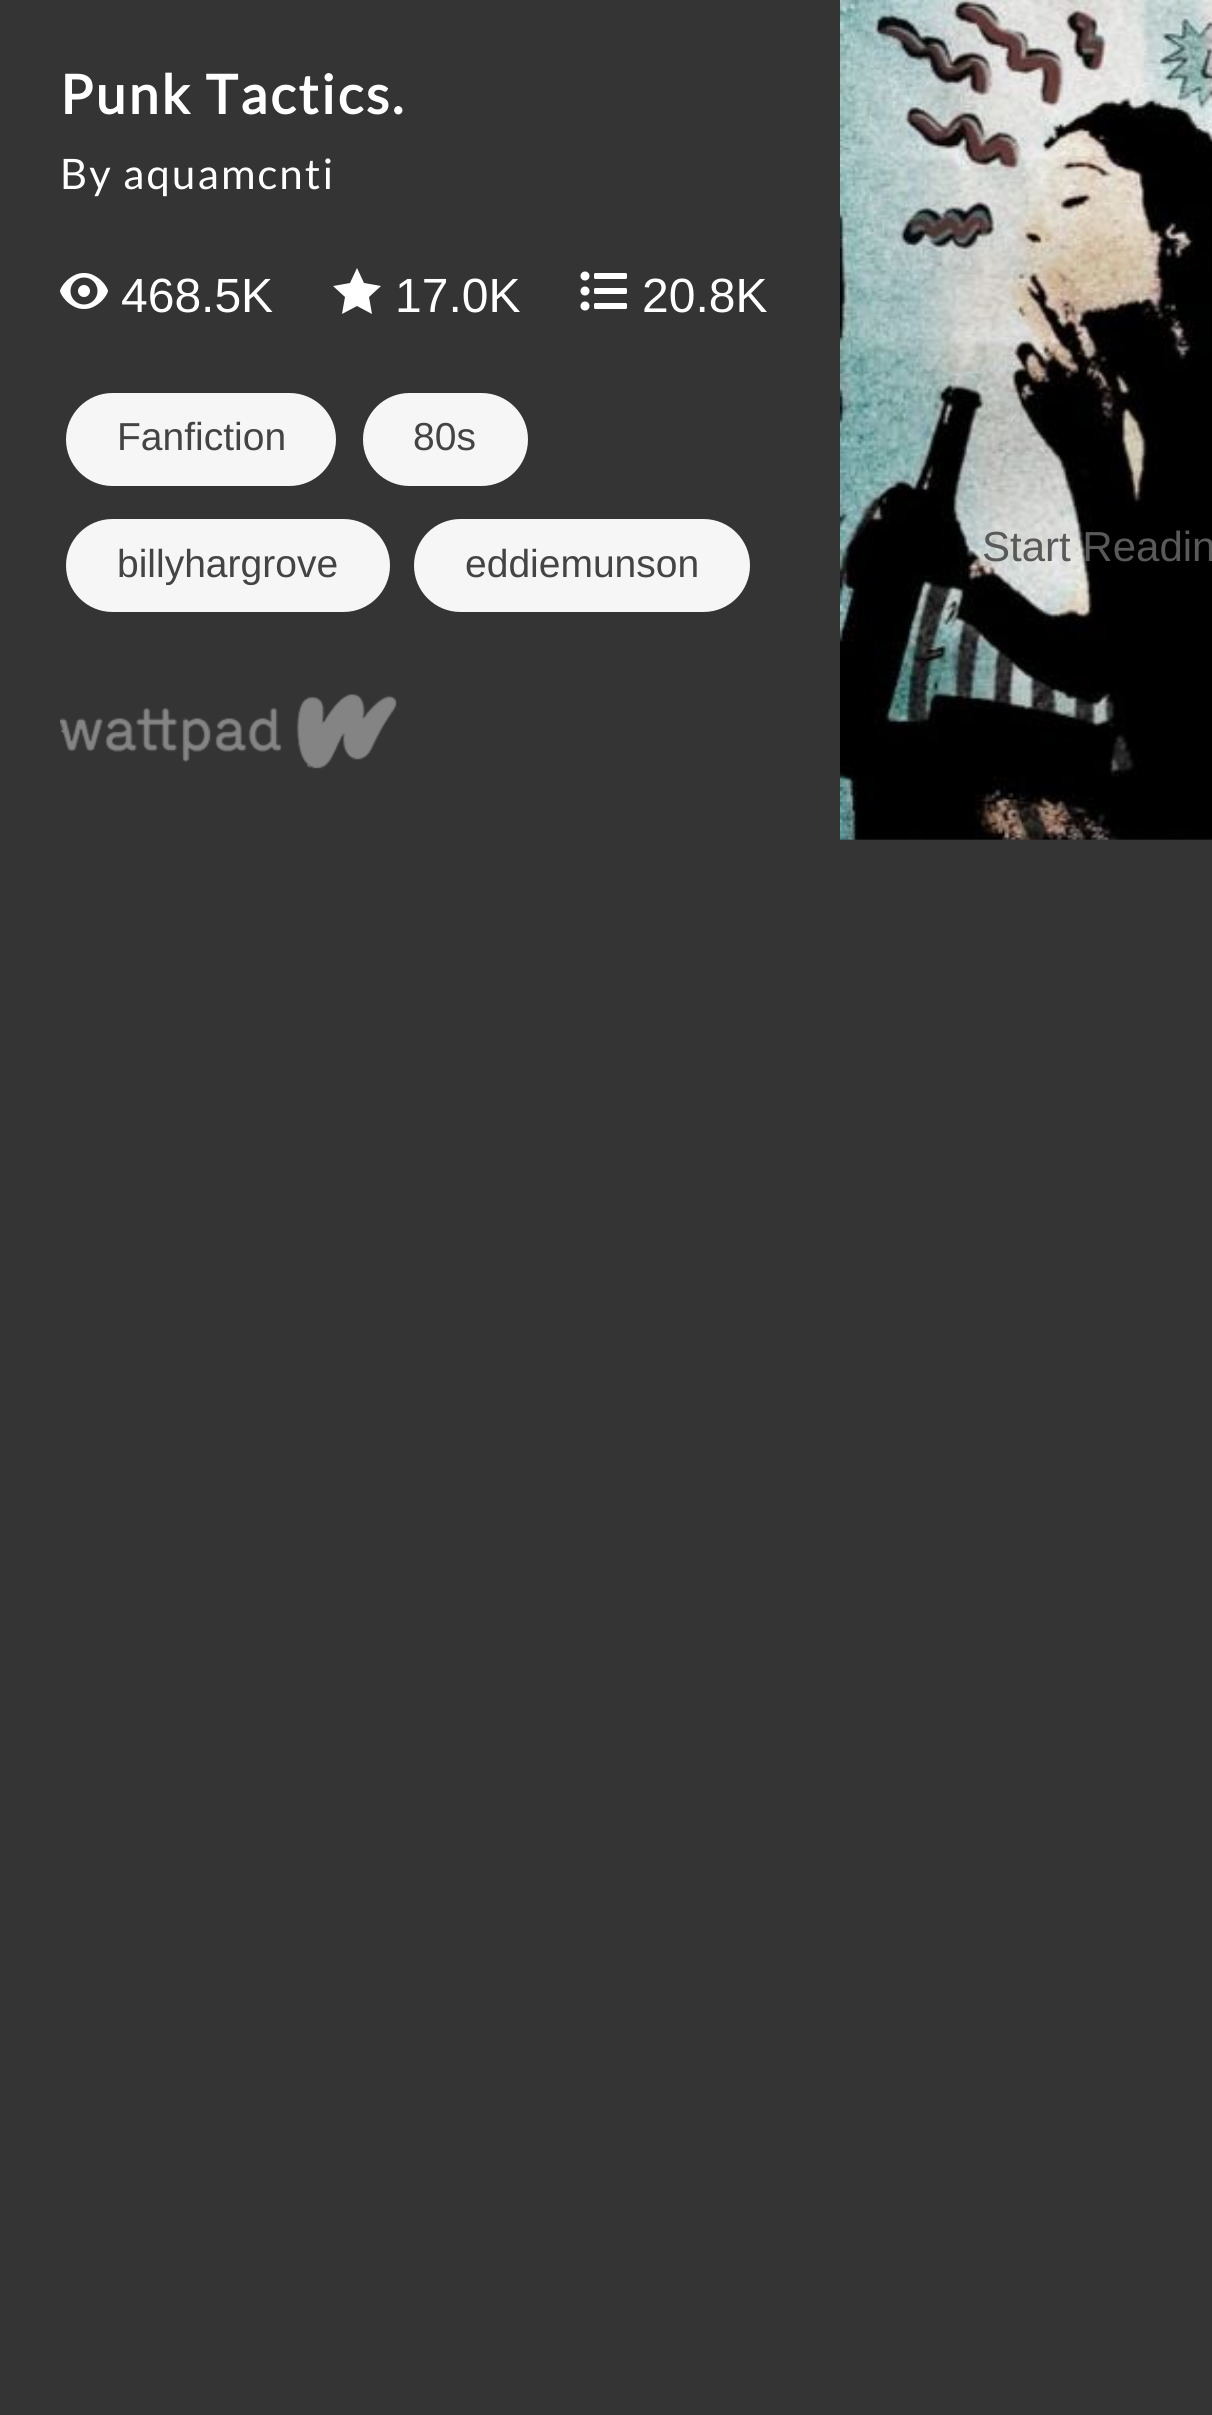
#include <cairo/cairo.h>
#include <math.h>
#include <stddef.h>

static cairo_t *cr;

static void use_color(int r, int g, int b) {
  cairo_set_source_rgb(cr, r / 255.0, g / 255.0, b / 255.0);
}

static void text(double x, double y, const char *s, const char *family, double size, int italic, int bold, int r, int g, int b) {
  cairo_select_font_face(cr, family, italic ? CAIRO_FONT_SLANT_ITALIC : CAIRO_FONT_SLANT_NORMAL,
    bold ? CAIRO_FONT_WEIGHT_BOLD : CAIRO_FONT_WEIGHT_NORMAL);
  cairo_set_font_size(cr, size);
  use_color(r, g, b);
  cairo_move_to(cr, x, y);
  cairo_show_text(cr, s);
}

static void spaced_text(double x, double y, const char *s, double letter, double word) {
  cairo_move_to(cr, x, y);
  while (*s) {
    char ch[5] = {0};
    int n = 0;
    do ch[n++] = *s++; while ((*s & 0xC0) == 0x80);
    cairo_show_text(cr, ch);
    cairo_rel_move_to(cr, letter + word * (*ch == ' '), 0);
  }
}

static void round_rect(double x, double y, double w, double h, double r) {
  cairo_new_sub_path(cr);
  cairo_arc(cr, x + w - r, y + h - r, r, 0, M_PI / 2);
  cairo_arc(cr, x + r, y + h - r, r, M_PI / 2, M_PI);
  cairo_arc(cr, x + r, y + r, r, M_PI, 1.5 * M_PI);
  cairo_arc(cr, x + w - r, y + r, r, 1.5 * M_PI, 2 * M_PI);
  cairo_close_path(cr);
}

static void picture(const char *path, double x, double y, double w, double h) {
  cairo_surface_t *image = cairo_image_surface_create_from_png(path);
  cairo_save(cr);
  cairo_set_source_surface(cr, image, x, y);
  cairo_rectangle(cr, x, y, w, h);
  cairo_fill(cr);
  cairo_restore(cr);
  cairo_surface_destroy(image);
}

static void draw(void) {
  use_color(52, 52, 52);
  cairo_paint(cr);
  picture("img_01.png", 60, 273, 48, 36);
  use_color(255, 255, 255);
  cairo_new_path(cr);
  cairo_move_to(cr, 357, 268);
  cairo_line_to(cr, 364, 283);
  cairo_line_to(cr, 381, 286);
  cairo_line_to(cr, 369, 297);
  cairo_line_to(cr, 372, 314);
  cairo_line_to(cr, 357, 306);
  cairo_line_to(cr, 342, 314);
  cairo_line_to(cr, 345, 297);
  cairo_line_to(cr, 333, 286);
  cairo_line_to(cr, 350, 283);
  cairo_close_path(cr);
  cairo_fill(cr);
  picture("img_02.png", 580, 271, 47, 40);
  use_color(246, 246, 247);
  round_rect(67.5, 394.5, 267, 90, 45);
  cairo_fill_preserve(cr);
  cairo_set_line_width(cr, 3);
  cairo_stroke(cr);
  round_rect(364.5, 394.5, 162, 90, 45);
  cairo_fill_preserve(cr);
  cairo_stroke(cr);
  round_rect(67.5, 520.5, 321, 90, 45);
  cairo_fill_preserve(cr);
  cairo_stroke(cr);
  round_rect(415.5, 520.5, 333, 90, 45);
  cairo_fill_preserve(cr);
  cairo_stroke(cr);
  picture("img_03.png", 60, 694, 337, 75);
  picture("img_04.png", 840, 0, 372, 840);
  cairo_select_font_face(cr, "Lato", CAIRO_FONT_SLANT_NORMAL, CAIRO_FONT_WEIGHT_BOLD);
  cairo_set_font_size(cr, 54);
  use_color(255, 255, 255);
  spaced_text(60, 114, "Punk Tactics.", 2.75, 0);
  cairo_select_font_face(cr, "Lato", CAIRO_FONT_SLANT_NORMAL, CAIRO_FONT_WEIGHT_NORMAL);
  cairo_set_font_size(cr, 42);
  spaced_text(60, 189, "By aquamcnti", 2.1, 0);
  text(121, 312, "468.5K", "Liberation Sans", 48, 0, 0, 255, 255, 255);
  text(395, 312, "17.0K", "Liberation Sans", 48, 0, 0, 255, 255, 255);
  text(642, 312, "20.8K", "Liberation Sans", 48, 0, 0, 255, 255, 255);
  text(117, 450, "Fanfiction", "Liberation Sans", 39, 0, 0, 68, 68, 68);
  text(413, 450, "80s", "Liberation Sans", 39, 0, 0, 68, 68, 68);
  text(117, 577, "billyhargrove", "Liberation Sans", 39, 0, 0, 68, 68, 68);
  text(465, 577, "eddiemunson", "Liberation Sans", 39, 0, 0, 68, 68, 68);
  text(982, 561, "Start Readin", "Liberation Sans", 42, 0, 0, 88, 89, 88);
}

int main(void) {
  cairo_surface_t *surface = cairo_image_surface_create(CAIRO_FORMAT_RGB24, 1212, 2415);
  cr = cairo_create(surface);
  cairo_font_options_t *options = cairo_font_options_create();
  cairo_font_options_set_hint_metrics(options, CAIRO_HINT_METRICS_OFF);
  cairo_font_options_set_hint_style(options, CAIRO_HINT_STYLE_NONE);
  cairo_set_font_options(cr, options);
  cairo_set_miter_limit(cr, 4);
  draw();
  cairo_surface_write_to_png(surface, "out.png");
  cairo_font_options_destroy(options);
  cairo_destroy(cr);
  cairo_surface_destroy(surface);
  return 0;
}
